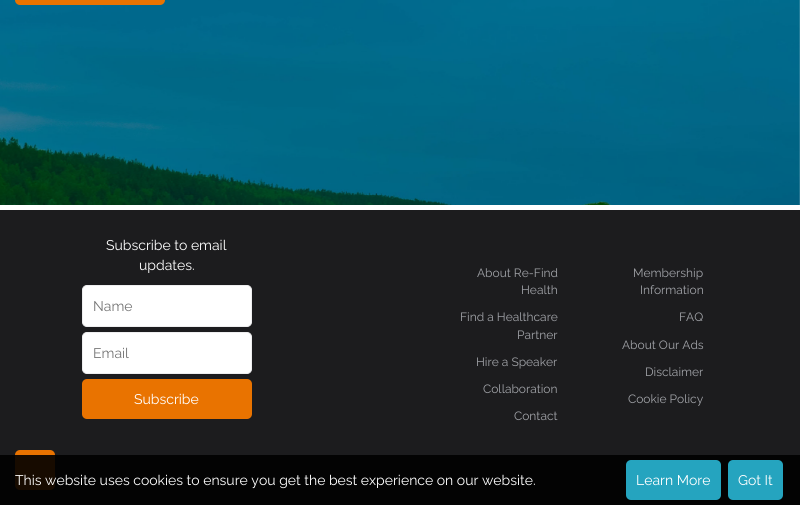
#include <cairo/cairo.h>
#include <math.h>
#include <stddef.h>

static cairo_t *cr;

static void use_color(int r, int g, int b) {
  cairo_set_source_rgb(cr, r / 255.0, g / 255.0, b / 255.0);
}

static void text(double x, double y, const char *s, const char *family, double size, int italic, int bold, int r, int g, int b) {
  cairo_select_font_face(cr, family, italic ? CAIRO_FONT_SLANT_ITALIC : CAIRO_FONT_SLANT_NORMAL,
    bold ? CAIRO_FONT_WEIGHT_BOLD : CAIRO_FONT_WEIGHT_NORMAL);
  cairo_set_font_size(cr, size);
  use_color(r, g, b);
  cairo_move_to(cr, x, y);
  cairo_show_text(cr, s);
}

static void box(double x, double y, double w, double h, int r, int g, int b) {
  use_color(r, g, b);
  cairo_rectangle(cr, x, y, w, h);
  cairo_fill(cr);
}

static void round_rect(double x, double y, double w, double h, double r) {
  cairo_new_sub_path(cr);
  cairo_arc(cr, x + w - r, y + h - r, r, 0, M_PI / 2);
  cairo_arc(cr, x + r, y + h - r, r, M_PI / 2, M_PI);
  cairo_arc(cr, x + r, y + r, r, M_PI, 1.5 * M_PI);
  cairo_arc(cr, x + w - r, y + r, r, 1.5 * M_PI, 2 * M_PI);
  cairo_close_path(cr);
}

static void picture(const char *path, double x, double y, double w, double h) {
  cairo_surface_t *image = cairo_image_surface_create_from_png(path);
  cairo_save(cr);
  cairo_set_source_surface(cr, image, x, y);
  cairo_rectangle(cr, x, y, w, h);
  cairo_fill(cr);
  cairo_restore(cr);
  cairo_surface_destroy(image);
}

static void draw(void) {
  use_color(255, 255, 255);
  cairo_paint(cr);
  picture("img_01.png", 0, 0, 800, 205);
  use_color(233, 115, 0);
  round_rect(15, -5, 150, 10, 5);
  cairo_fill(cr);
  box(0, 210, 800, 295, 28, 28, 30);
  use_color(255, 255, 255);
  round_rect(82.5, 285.5, 169, 41, 4.5);
  cairo_fill_preserve(cr);
  use_color(238, 238, 239);
  cairo_set_line_width(cr, 1);
  cairo_stroke(cr);
  use_color(255, 255, 255);
  round_rect(82.5, 332.5, 169, 41, 4.5);
  cairo_fill_preserve(cr);
  use_color(238, 238, 239);
  cairo_stroke(cr);
  use_color(233, 115, 0);
  round_rect(82, 379, 170, 40, 5);
  cairo_fill(cr);
  round_rect(15, 450, 40, 40, 5);
  cairo_fill(cr);
  cairo_set_source_rgba(cr, 0, 0, 0, 0.9);
  cairo_rectangle(cr, 0, 455, 800, 50);
  cairo_fill(cr);
  use_color(37, 164, 191);
  round_rect(626, 460, 95, 40, 5);
  cairo_fill(cr);
  round_rect(728, 460, 55, 40, 5);
  cairo_fill(cr);
  text(106, 250, "Subscribe to email", "Raleway", 14, 0, 0, 255, 255, 255);
  text(139, 270, "updates.", "Raleway", 14, 0, 0, 255, 255, 255);
  text(93, 311, "Name", "Raleway", 14, 0, 0, 117, 117, 117);
  text(93, 358, "Email", "Raleway", 14, 0, 0, 117, 117, 117);
  text(134, 404, "Subscribe", "Raleway", 14, 0, 0, 255, 255, 255);
  text(477, 277, "About Re-Find", "Raleway", 12, 0, 0, 161, 163, 168);
  text(521, 294, "Health", "Raleway", 12, 0, 0, 161, 163, 168);
  text(460, 321, "Find a Healthcare", "Raleway", 12, 0, 0, 161, 163, 168);
  text(517, 339, "Partner", "Raleway", 12, 0, 0, 161, 163, 168);
  text(476, 366, "Hire a Speaker", "Raleway", 12, 0, 0, 161, 163, 168);
  text(483, 393, "Collaboration", "Raleway", 12, 0, 0, 161, 163, 168);
  text(514, 420, "Contact", "Raleway", 12, 0, 0, 161, 163, 168);
  text(633, 277, "Membership", "Raleway", 12, 0, 0, 161, 163, 168);
  text(640, 294, "Information", "Raleway", 12, 0, 0, 161, 163, 168);
  text(679, 321, "FAQ", "Raleway", 12, 0, 0, 161, 163, 168);
  text(622, 349, "About Our Ads", "Raleway", 12, 0, 0, 161, 163, 168);
  text(645, 376, "Disclaimer", "Raleway", 12, 0, 0, 161, 163, 168);
  text(628, 403, "Cookie Policy", "Raleway", 12, 0, 0, 161, 163, 168);
  text(15, 485, "This website uses cookies to ensure you get the best experience on our website.", "Raleway", 14, 0, 0, 255, 255, 255);
  text(636, 485, "Learn More", "Raleway", 14, 0, 0, 255, 255, 255);
  text(738, 485, "Got It", "Raleway", 14, 0, 0, 255, 255, 255);
}

int main(void) {
  cairo_surface_t *surface = cairo_image_surface_create(CAIRO_FORMAT_RGB24, 800, 505);
  cr = cairo_create(surface);
  cairo_font_options_t *options = cairo_font_options_create();
  cairo_font_options_set_hint_metrics(options, CAIRO_HINT_METRICS_OFF);
  cairo_font_options_set_hint_style(options, CAIRO_HINT_STYLE_NONE);
  cairo_set_font_options(cr, options);
  cairo_set_miter_limit(cr, 4);
  draw();
  cairo_surface_write_to_png(surface, "out.png");
  cairo_font_options_destroy(options);
  cairo_destroy(cr);
  cairo_surface_destroy(surface);
  return 0;
}
